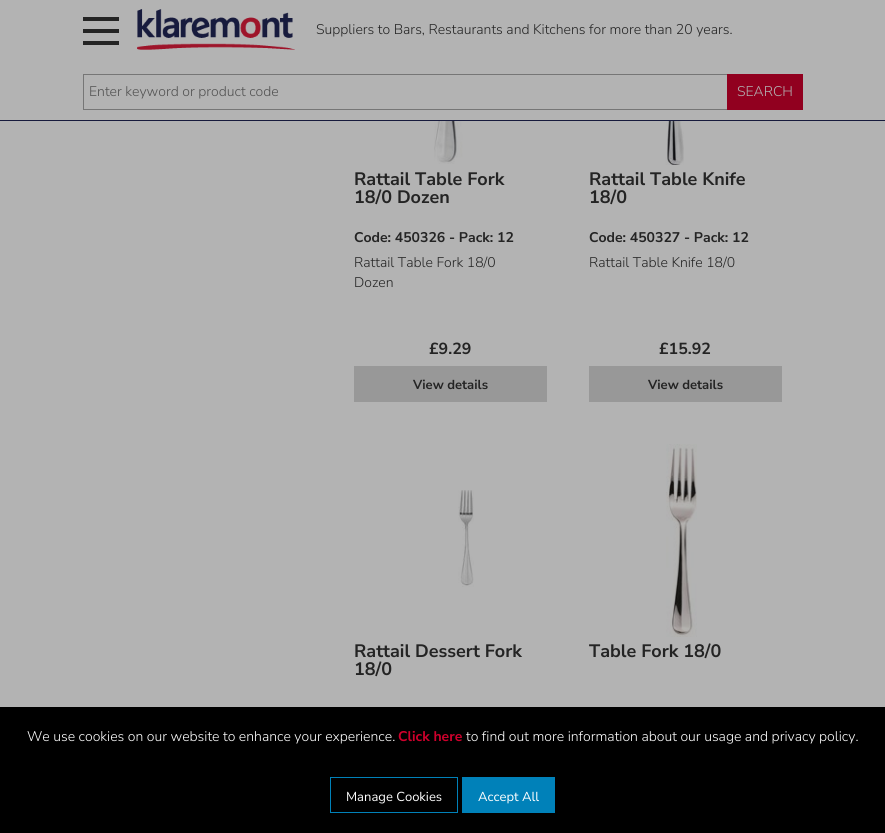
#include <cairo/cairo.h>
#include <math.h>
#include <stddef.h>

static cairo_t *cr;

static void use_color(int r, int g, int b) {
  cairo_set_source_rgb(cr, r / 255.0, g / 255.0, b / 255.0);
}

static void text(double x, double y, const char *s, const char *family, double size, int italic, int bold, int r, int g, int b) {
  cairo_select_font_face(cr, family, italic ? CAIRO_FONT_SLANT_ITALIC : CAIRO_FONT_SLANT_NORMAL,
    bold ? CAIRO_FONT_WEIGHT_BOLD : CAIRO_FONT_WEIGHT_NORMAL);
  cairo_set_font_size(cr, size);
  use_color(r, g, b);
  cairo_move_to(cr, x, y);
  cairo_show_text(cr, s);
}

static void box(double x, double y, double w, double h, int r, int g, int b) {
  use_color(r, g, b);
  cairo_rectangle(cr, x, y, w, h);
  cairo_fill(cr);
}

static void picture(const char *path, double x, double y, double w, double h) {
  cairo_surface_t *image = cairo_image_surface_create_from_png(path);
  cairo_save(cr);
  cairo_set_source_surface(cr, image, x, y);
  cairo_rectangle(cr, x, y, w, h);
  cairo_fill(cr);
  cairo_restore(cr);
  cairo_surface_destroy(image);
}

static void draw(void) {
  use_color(179, 179, 179);
  cairo_paint(cr);
  box(0, 120, 885, 1, 23, 27, 61);
  picture("img_01.png", 83, 17, 36, 28);
  picture("img_02.png", 137, 9, 158, 41);
  cairo_rectangle(cr, 83.5, 74.5, 719, 35);
  use_color(118, 118, 118);
  cairo_set_line_width(cr, 1);
  cairo_stroke(cr);
  box(727, 74, 76, 36, 145, 0, 31);
  picture("img_03.png", 434, 121, 35, 43);
  box(354, 366, 193, 36, 152, 152, 152);
  picture("img_04.png", 660, 121, 24, 44);
  box(589, 366, 193, 36, 152, 152, 152);
  picture("img_05.png", 458, 490, 16, 97);
  picture("img_06.png", 666, 444, 31, 193);
  box(0, 707, 885, 126, 0, 0, 0);
  cairo_rectangle(cr, 330.5, 777.5, 127, 35);
  use_color(0, 129, 185);
  cairo_stroke(cr);
  box(462, 777, 93, 36, 0, 129, 185);
  text(316, 34, "Suppliers to Bars, Restaurants and Kitchens for more than 20 years.", "Nunito Sans Light", 14, 0, 0, 36, 36, 36);
  text(89, 96, "Enter keyword or product code", "Nunito Sans Light", 14, 0, 0, 82, 82, 82);
  text(737, 96, "SEARCH", "Nunito Sans Light", 14, 0, 0, 179, 179, 179);
  text(354, 185, "Rattail Table Fork", "Nunito Sans", 18, 0, 1, 36, 36, 36);
  text(354, 203, "18/0 Dozen", "Nunito Sans", 18, 0, 1, 36, 36, 36);
  text(354, 242, "Code: 450326 - Pack: 12", "Nunito Sans", 14, 0, 1, 36, 36, 36);
  text(354, 267, "Rattail Table Fork 18/0", "Nunito Sans Light", 14, 0, 0, 36, 36, 36);
  text(354, 287, "Dozen", "Nunito Sans Light", 14, 0, 0, 36, 36, 36);
  text(429, 354, "£9.29", "Nunito Sans", 16, 0, 1, 36, 36, 36);
  text(413, 389, "View details", "Nunito Sans", 13, 0, 1, 36, 36, 36);
  text(589, 185, "Rattail Table Knife", "Nunito Sans", 18, 0, 1, 36, 36, 36);
  text(589, 203, "18/0", "Nunito Sans", 18, 0, 1, 36, 36, 36);
  text(589, 242, "Code: 450327 - Pack: 12", "Nunito Sans", 14, 0, 1, 36, 36, 36);
  text(589, 267, "Rattail Table Knife 18/0", "Nunito Sans Light", 14, 0, 0, 36, 36, 36);
  text(659, 354, "£15.92", "Nunito Sans", 16, 0, 1, 36, 36, 36);
  text(648, 389, "View details", "Nunito Sans", 13, 0, 1, 36, 36, 36);
  text(354, 657, "Rattail Dessert Fork", "Nunito Sans", 18, 0, 1, 36, 36, 36);
  text(354, 675, "18/0", "Nunito Sans", 18, 0, 1, 36, 36, 36);
  cairo_save(cr);
  cairo_rectangle(cr, 589, 642, 193, 53);
  cairo_clip(cr);
  text(589, 657, "Table Fork 18/0", "Nunito Sans", 18, 0, 1, 36, 36, 36);
  cairo_restore(cr);
  text(27, 741, "We use cookies on our website to enhance your experience.", "Nunito Sans Light", 14, 0, 0, 255, 255, 255);
  text(398, 741, "Click here", "Nunito Sans", 14, 0, 1, 207, 0, 44);
  text(466, 741, "to find out more information about our usage and privacy policy.", "Nunito Sans Light", 14, 0, 0, 255, 255, 255);
  text(346, 801, "Manage Cookies", "Nunito Sans", 13, 0, 0, 255, 255, 255);
  text(478, 801, "Accept All", "Nunito Sans", 13, 0, 0, 255, 255, 255);
}

int main(void) {
  cairo_surface_t *surface = cairo_image_surface_create(CAIRO_FORMAT_RGB24, 885, 833);
  cr = cairo_create(surface);
  cairo_font_options_t *options = cairo_font_options_create();
  cairo_font_options_set_hint_metrics(options, CAIRO_HINT_METRICS_OFF);
  cairo_font_options_set_hint_style(options, CAIRO_HINT_STYLE_NONE);
  cairo_set_font_options(cr, options);
  cairo_set_miter_limit(cr, 4);
  draw();
  cairo_surface_write_to_png(surface, "out.png");
  cairo_font_options_destroy(options);
  cairo_destroy(cr);
  cairo_surface_destroy(surface);
  return 0;
}
